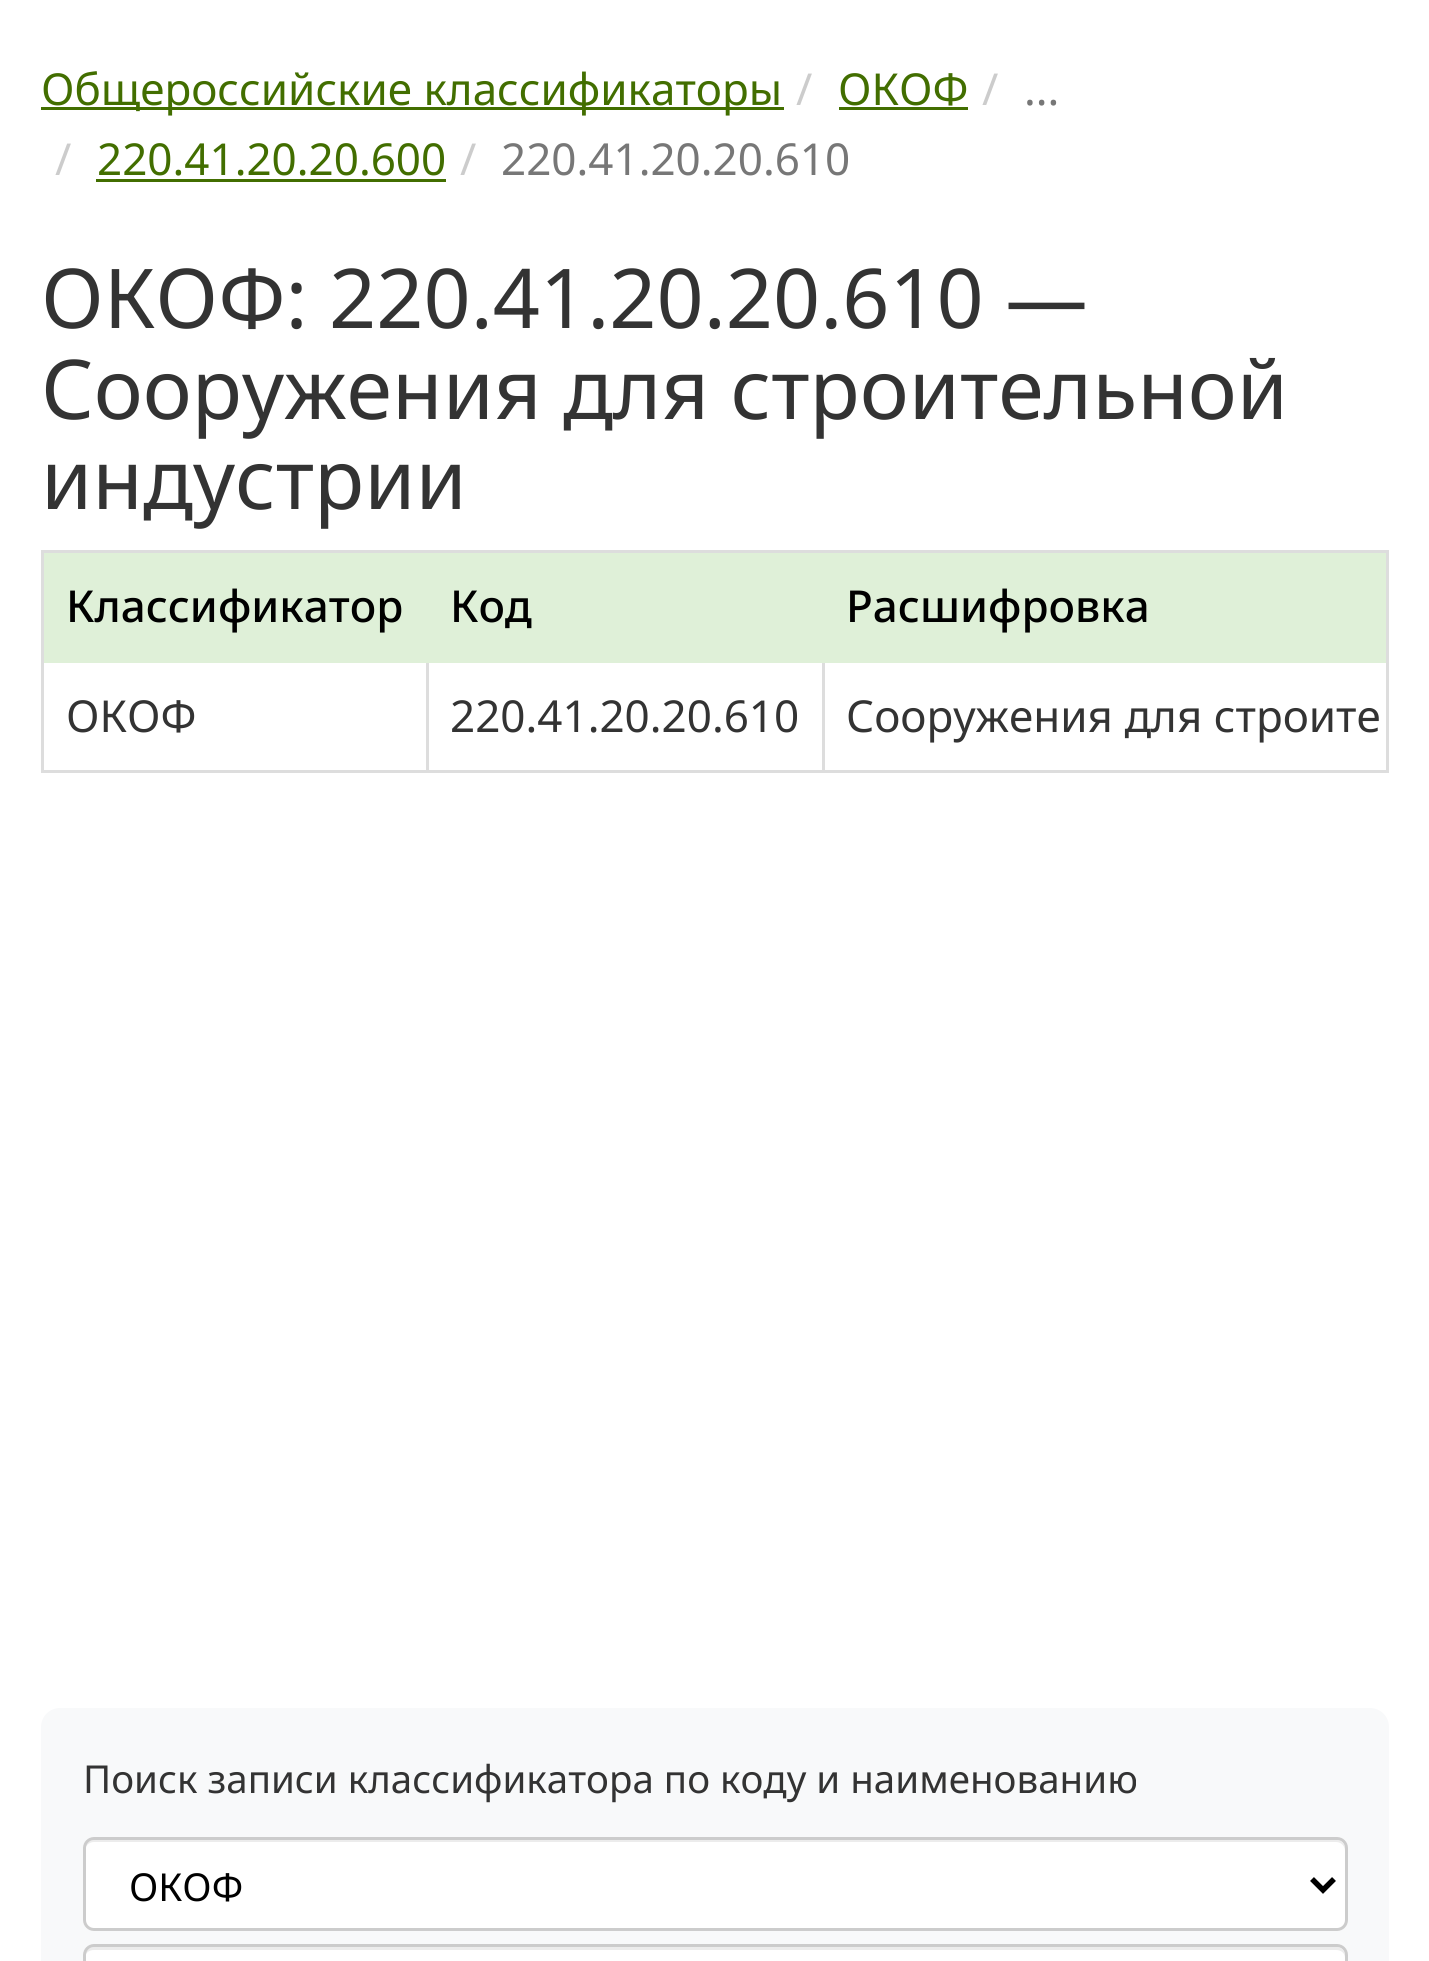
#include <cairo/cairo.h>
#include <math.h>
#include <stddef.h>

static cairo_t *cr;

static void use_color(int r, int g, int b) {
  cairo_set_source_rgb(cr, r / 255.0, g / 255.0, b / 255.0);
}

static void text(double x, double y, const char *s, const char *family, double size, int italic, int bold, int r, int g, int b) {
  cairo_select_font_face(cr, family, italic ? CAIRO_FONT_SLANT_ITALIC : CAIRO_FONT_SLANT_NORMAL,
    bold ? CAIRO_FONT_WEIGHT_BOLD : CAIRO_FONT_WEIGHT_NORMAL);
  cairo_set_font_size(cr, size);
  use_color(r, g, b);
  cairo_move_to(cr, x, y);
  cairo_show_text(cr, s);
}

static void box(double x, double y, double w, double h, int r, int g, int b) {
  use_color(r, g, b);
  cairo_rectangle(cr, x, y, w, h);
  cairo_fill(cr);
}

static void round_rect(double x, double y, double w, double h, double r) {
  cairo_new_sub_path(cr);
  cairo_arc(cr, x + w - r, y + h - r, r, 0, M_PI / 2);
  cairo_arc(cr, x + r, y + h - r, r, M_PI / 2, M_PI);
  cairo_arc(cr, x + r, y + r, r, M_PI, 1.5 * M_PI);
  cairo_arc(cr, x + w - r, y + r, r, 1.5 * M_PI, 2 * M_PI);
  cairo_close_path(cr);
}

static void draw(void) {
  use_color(255, 255, 255);
  cairo_paint(cr);
  box(41, 107, 743, 3, 66, 110, 0);
  box(839, 107, 129, 3, 66, 110, 0);
  box(96, 179, 350, 3, 66, 110, 0);
  cairo_rectangle(cr, 42.5, 551.5, 1345, 220);
  use_color(221, 221, 221);
  cairo_set_line_width(cr, 3);
  cairo_stroke(cr);
  box(426, 660, 3, 110, 221, 221, 221);
  box(822, 660, 3, 110, 221, 221, 221);
  box(44, 553, 1342, 110, 223, 240, 216);
  use_color(248, 249, 250);
  round_rect(41, 1708, 1348, 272, 19);
  cairo_fill(cr);
  use_color(255, 255, 255);
  round_rect(83, 1837, 1265, 94, 11);
  cairo_fill(cr);
  use_color(236, 236, 236);
  cairo_new_path(cr);
  cairo_move_to(cr, 94, 1842);
  cairo_line_to(cr, 1336, 1842);
  cairo_curve_to(cr, 1341, 1842, 1345, 1846, 1345, 1851);
  cairo_line_to(cr, 1345, 1848);
  cairo_curve_to(cr, 1345, 1844, 1341, 1840, 1337, 1840);
  cairo_line_to(cr, 93, 1840);
  cairo_curve_to(cr, 89, 1840, 85, 1844, 85, 1848);
  cairo_line_to(cr, 85, 1851);
  cairo_curve_to(cr, 85, 1846, 89, 1842, 94, 1842);
  cairo_close_path(cr);
  cairo_fill(cr);
  round_rect(84.5, 1838.5, 1262, 91, 9.5);
  use_color(204, 204, 204);
  cairo_stroke(cr);
  cairo_new_path(cr);
  cairo_move_to(cr, 1312, 1879);
  cairo_line_to(cr, 1323, 1890);
  cairo_line_to(cr, 1334, 1879);
  use_color(0, 0, 0);
  cairo_set_line_width(cr, 5.5);
  cairo_stroke(cr);
  use_color(255, 255, 255);
  round_rect(83, 1944, 1265, 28, 11);
  cairo_fill(cr);
  use_color(236, 236, 236);
  cairo_new_path(cr);
  cairo_move_to(cr, 94, 1950);
  cairo_line_to(cr, 1336, 1950);
  cairo_curve_to(cr, 1341, 1950, 1345, 1953, 1345, 1958);
  cairo_line_to(cr, 1345, 1955);
  cairo_curve_to(cr, 1345, 1951, 1341, 1947, 1337, 1947);
  cairo_line_to(cr, 93, 1947);
  cairo_curve_to(cr, 89, 1947, 85, 1951, 85, 1955);
  cairo_line_to(cr, 85, 1958);
  cairo_curve_to(cr, 85, 1953, 89, 1950, 94, 1950);
  cairo_close_path(cr);
  cairo_fill(cr);
  round_rect(84.5, 1945.5, 1262, 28, 9.5);
  use_color(204, 204, 204);
  cairo_set_line_width(cr, 3);
  cairo_stroke(cr);
  text(41, 105, "Общероссийские классификаторы", "Noto Sans", 44, 0, 0, 66, 110, 0);
  text(796, 105, "/", "Noto Sans", 44, 0, 0, 204, 204, 204);
  text(838, 105, "ОКОФ", "Noto Sans", 44, 0, 0, 66, 110, 0);
  text(982, 105, "/", "Noto Sans", 44, 0, 0, 204, 204, 204);
  text(1024, 105, "...", "Noto Sans", 44, 0, 0, 119, 119, 119);
  text(55, 175, "/", "Noto Sans", 44, 0, 0, 204, 204, 204);
  text(97, 175, "220.41.20.20.600", "Noto Sans", 44, 0, 0, 66, 110, 0);
  text(460, 175, "/", "Noto Sans", 44, 0, 0, 204, 204, 204);
  text(501, 175, "220.41.20.20.610", "Noto Sans", 44, 0, 0, 119, 119, 119);
  text(41, 328, "ОКОФ: 220.41.20.20.610 —", "Noto Sans", 82.5, 0, 0, 51, 51, 51);
  text(41, 419, "Сооружения для строительной", "Noto Sans", 82.5, 0, 0, 51, 51, 51);
  text(41, 509, "индустрии", "Noto Sans", 82.5, 0, 0, 51, 51, 51);
  text(66, 622, "Классификатор", "Noto Sans Medium", 44, 0, 0, 0, 0, 0);
  text(450, 622, "Код", "Noto Sans Medium", 44, 0, 0, 0, 0, 0);
  text(846, 622, "Расшифровка", "Noto Sans Medium", 44, 0, 0, 0, 0, 0);
  text(66, 732, "ОКОФ", "Noto Sans", 44, 0, 0, 51, 51, 51);
  text(450, 732, "220.41.20.20.610", "Noto Sans", 44, 0, 0, 51, 51, 51);
  text(846, 732, "Сооружения для строите", "Noto Sans", 44, 0, 0, 51, 51, 51);
  text(83, 1793, "Поиск записи классификатора по коду и наименованию", "Noto Sans", 38.5, 0, 0, 51, 51, 51);
  text(129, 1901, "ОКОФ", "Noto Sans", 38.5, 0, 0, 0, 0, 0);
}

int main(void) {
  cairo_surface_t *surface = cairo_image_surface_create(CAIRO_FORMAT_RGB24, 1429, 1961);
  cr = cairo_create(surface);
  cairo_font_options_t *options = cairo_font_options_create();
  cairo_font_options_set_hint_metrics(options, CAIRO_HINT_METRICS_OFF);
  cairo_font_options_set_hint_style(options, CAIRO_HINT_STYLE_NONE);
  cairo_set_font_options(cr, options);
  cairo_set_miter_limit(cr, 4);
  draw();
  cairo_surface_write_to_png(surface, "out.png");
  cairo_font_options_destroy(options);
  cairo_destroy(cr);
  cairo_surface_destroy(surface);
  return 0;
}
